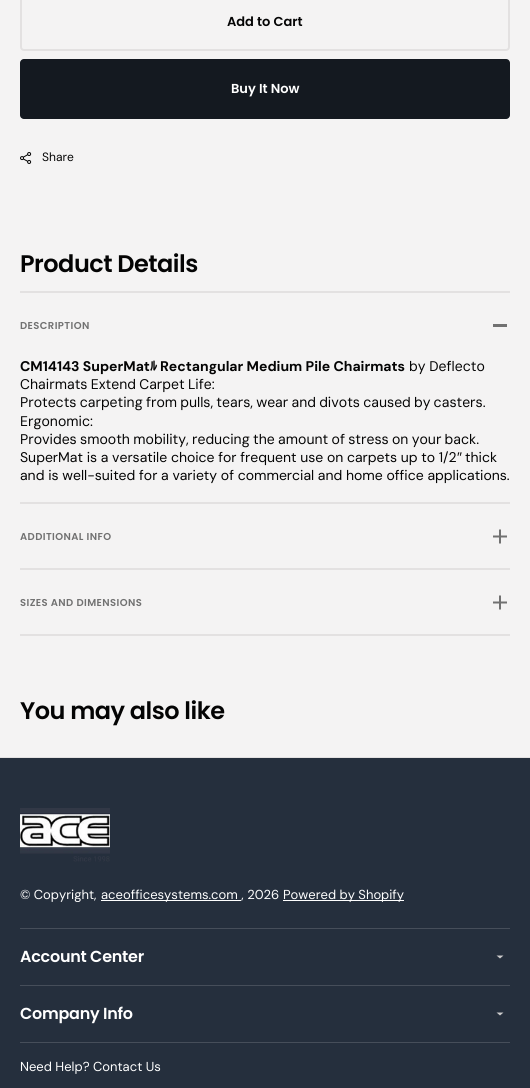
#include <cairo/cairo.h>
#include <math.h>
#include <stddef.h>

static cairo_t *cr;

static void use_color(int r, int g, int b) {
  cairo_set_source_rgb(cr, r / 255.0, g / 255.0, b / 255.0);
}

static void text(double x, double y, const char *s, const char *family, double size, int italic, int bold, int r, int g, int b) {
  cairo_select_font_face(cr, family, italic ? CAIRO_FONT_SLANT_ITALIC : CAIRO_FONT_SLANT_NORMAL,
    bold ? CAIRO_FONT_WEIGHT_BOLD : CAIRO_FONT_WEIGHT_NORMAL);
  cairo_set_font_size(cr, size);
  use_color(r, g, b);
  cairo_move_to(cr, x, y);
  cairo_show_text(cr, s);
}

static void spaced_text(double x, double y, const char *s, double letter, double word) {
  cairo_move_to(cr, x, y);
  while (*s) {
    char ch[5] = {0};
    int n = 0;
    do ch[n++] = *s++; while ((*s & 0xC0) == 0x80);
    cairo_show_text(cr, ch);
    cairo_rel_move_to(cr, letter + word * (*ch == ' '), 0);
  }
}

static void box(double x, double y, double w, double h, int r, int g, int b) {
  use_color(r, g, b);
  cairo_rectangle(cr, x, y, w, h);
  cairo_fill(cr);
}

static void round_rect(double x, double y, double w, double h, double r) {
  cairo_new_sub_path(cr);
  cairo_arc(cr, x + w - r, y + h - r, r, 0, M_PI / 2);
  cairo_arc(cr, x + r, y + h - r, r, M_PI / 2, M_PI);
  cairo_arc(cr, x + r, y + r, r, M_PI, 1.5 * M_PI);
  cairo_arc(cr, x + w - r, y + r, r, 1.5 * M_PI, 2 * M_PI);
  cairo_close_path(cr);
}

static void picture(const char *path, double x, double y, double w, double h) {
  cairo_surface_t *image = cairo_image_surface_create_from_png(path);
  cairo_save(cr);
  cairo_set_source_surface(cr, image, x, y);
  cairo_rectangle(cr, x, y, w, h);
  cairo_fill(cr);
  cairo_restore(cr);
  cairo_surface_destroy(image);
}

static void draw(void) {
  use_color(244, 243, 243);
  cairo_paint(cr);
  round_rect(21, -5, 488, 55, 3);
  use_color(227, 225, 225);
  cairo_stroke(cr);
  use_color(20, 25, 32);
  round_rect(20, 59, 490, 60, 4);
  cairo_fill(cr);
  picture("img_01.png", 20, 152, 12, 12);
  box(20, 291, 490, 2, 227, 225, 225);
  box(493, 324, 14, 3, 113, 113, 113);
  box(20, 502, 490, 2, 227, 225, 225);
  picture("img_02.png", 493, 529, 14, 15);
  box(20, 568, 490, 2, 227, 225, 225);
  box(20, 634, 490, 2, 227, 225, 225);
  picture("img_02.png", 493, 595, 14, 15);
  box(0, 758, 530, 330, 37, 47, 61);
  box(0, 757, 530, 1, 227, 225, 225);
  picture("img_03.png", 20, 808, 90, 54);
  box(101, 900, 140, 1, 255, 255, 255);
  box(283, 900, 121, 1, 255, 255, 255);
  box(20, 928, 490, 1, 70, 78, 90);
  box(20, 985, 490, 1, 70, 78, 90);
  use_color(204, 204, 204);
  cairo_new_path(cr);
  cairo_move_to(cr, 500, 958.5);
  cairo_line_to(cr, 496.5, 955.5);
  cairo_line_to(cr, 503.5, 955.5);
  cairo_close_path(cr);
  cairo_fill(cr);
  box(20, 1042, 490, 1, 70, 78, 90);
  use_color(204, 204, 204);
  cairo_new_path(cr);
  cairo_move_to(cr, 500, 1015.5);
  cairo_line_to(cr, 496.5, 1012.5);
  cairo_line_to(cr, 503.5, 1012.5);
  cairo_close_path(cr);
  cairo_fill(cr);
  text(227, 26, "Add to Cart", "Poppins SemiBold", 13, 0, 0, 4, 4, 4);
  text(231, 93, "Buy It Now", "Poppins SemiBold", 13, 0, 0, 255, 255, 255);
  text(42, 161, "Share", "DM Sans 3", 12, 0, 0, 4, 4, 4);
  cairo_select_font_face(cr, "Poppins SemiBold", CAIRO_FONT_SLANT_NORMAL, CAIRO_FONT_WEIGHT_NORMAL);
  cairo_set_font_size(cr, 24);
  spaced_text(20, 272, "Product Details", -0.5, 0);
  cairo_set_font_size(cr, 10);
  use_color(113, 113, 113);
  spaced_text(20, 329, "DESCRIPTION", 0.4, 0);
  text(20, 371, "CM14143 SuperMat", "DM Sans", 14, 0, 1, 4, 4, 4);
  text(150, 371, "ﾙ", "IPAGothic", 14, 0, 1, 4, 4, 4);
  text(160, 371, "Rectangular Medium Pile Chairmats", "DM Sans", 14, 0, 1, 4, 4, 4);
  text(409, 371, "by Deflecto", "DM Sans", 14, 0, 0, 4, 4, 4);
  spaced_text(20, 389, "Chairmats Extend Carpet Life:", 0, -0.5);
  spaced_text(20, 407, "Protects carpeting from pulls, tears, wear and divots caused by casters.", 0, -0.6);
  text(20, 426, "Ergonomic:", "DM Sans", 14, 0, 0, 4, 4, 4);
  spaced_text(20, 444, "Provides smooth mobility, reducing the amount of stress on your back.", 0, -0.5);
  text(20, 462, "SuperMat is a versatile choice for frequent use on carpets up to 1/2", "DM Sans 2", 14, 0, 0, 4, 4, 4);
  text(457, 462, "″", "Liberation Sans", 14, 0, 0, 4, 4, 4);
  text(465, 462, "thick", "DM Sans 2", 14, 0, 0, 4, 4, 4);
  text(20, 480, "and is well-suited for a variety of commercial and home office applications.", "DM Sans 2", 14, 0, 0, 4, 4, 4);
  cairo_select_font_face(cr, "Poppins SemiBold", CAIRO_FONT_SLANT_NORMAL, CAIRO_FONT_WEIGHT_NORMAL);
  cairo_set_font_size(cr, 10);
  use_color(113, 113, 113);
  spaced_text(20, 540, "ADDITIONAL INFO", 0.4, 0);
  spaced_text(20, 606, "SIZES AND DIMENSIONS", 0.4, 0);
  cairo_set_font_size(cr, 24);
  use_color(4, 4, 4);
  spaced_text(20, 719, "You may also like", -0.5, 0);
  text(20, 899, "© Copyright,", "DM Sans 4", 13, 0, 0, 255, 255, 255);
  text(101, 899, "aceofficesystems.com , 2026", "DM Sans 4", 13, 0, 0, 255, 255, 255);
  text(283, 899, "Powered by Shopify", "DM Sans 4", 13, 0, 0, 255, 255, 255);
  cairo_select_font_face(cr, "Poppins SemiBold", CAIRO_FONT_SLANT_NORMAL, CAIRO_FONT_WEIGHT_NORMAL);
  cairo_set_font_size(cr, 16);
  spaced_text(20, 962, "Account Center", -0.25, 0);
  spaced_text(20, 1019, "Company Info", -0.25, 0);
  text(20, 1071, "Need Help? Contact Us", "DM Sans 4", 13, 0, 0, 255, 255, 255);
}

int main(void) {
  cairo_surface_t *surface = cairo_image_surface_create(CAIRO_FORMAT_RGB24, 530, 1088);
  cr = cairo_create(surface);
  cairo_font_options_t *options = cairo_font_options_create();
  cairo_font_options_set_hint_metrics(options, CAIRO_HINT_METRICS_OFF);
  cairo_font_options_set_hint_style(options, CAIRO_HINT_STYLE_NONE);
  cairo_set_font_options(cr, options);
  cairo_set_miter_limit(cr, 4);
  draw();
  cairo_surface_write_to_png(surface, "out.png");
  cairo_font_options_destroy(options);
  cairo_destroy(cr);
  cairo_surface_destroy(surface);
  return 0;
}
